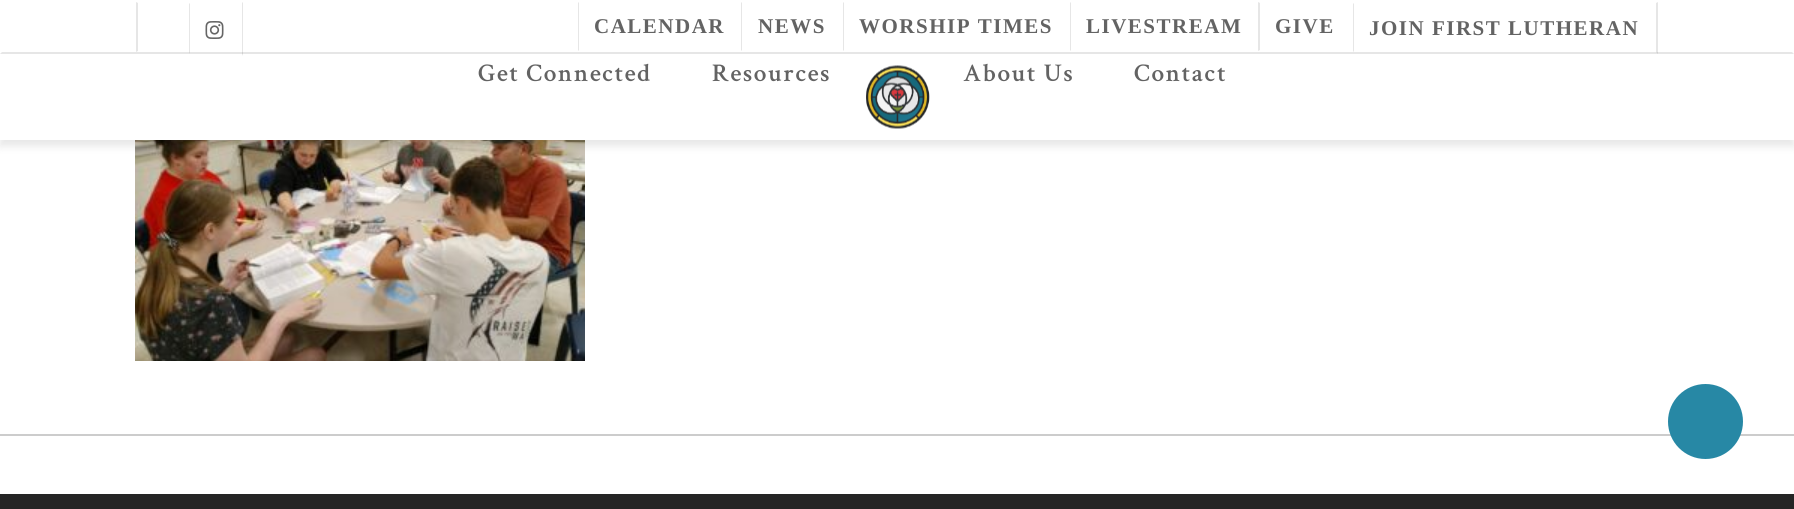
#include <cairo/cairo.h>
#include <math.h>
#include <stddef.h>

static cairo_t *cr;

static void use_color(int r, int g, int b) {
  cairo_set_source_rgb(cr, r / 255.0, g / 255.0, b / 255.0);
}

static void spaced_text(double x, double y, const char *s, double letter, double word) {
  cairo_move_to(cr, x, y);
  while (*s) {
    char ch[5] = {0};
    int n = 0;
    do ch[n++] = *s++; while ((*s & 0xC0) == 0x80);
    cairo_show_text(cr, ch);
    cairo_rel_move_to(cr, letter + word * (*ch == ' '), 0);
  }
}

static void box(double x, double y, double w, double h, int r, int g, int b) {
  use_color(r, g, b);
  cairo_rectangle(cr, x, y, w, h);
  cairo_fill(cr);
}

static void round_rect(double x, double y, double w, double h, double r) {
  cairo_new_sub_path(cr);
  cairo_arc(cr, x + w - r, y + h - r, r, 0, M_PI / 2);
  cairo_arc(cr, x + r, y + h - r, r, M_PI / 2, M_PI);
  cairo_arc(cr, x + r, y + r, r, M_PI, 1.5 * M_PI);
  cairo_arc(cr, x + w - r, y + r, r, 1.5 * M_PI, 2 * M_PI);
  cairo_close_path(cr);
}

static void shadow(double x, double y, double w, double h, double r, double blur, double alpha) {
  cairo_push_group_with_content(cr, CAIRO_CONTENT_ALPHA);
  cairo_set_operator(cr, CAIRO_OPERATOR_SOURCE);
  for (int i = 15; i >= -15 && fmin(w, h) + blur * i / 3 > 0; i -= 2) {
    double e = blur * i / 6;
    cairo_set_source_rgba(cr, 0, 0, 0, alpha * erfc((i - 1) / 8.5) / 2);
    round_rect(x - e, y - e, w + 2 * e, h + 2 * e, fmax(0, fmin(r + e + blur * .6, fmin(w, h) / 2 + e)));
    cairo_fill(cr);
  }
  cairo_pattern_t *soft = cairo_pop_group(cr);
  cairo_mask(cr, soft);
  cairo_pattern_destroy(soft);
}

static void picture(const char *path, double x, double y, double w, double h) {
  cairo_surface_t *image = cairo_image_surface_create_from_png(path);
  cairo_save(cr);
  cairo_set_source_surface(cr, image, x, y);
  cairo_rectangle(cr, x, y, w, h);
  cairo_fill(cr);
  cairo_restore(cr);
  cairo_surface_destroy(image);
}

static void draw(void) {
  use_color(37, 37, 37);
  cairo_paint(cr);
  box(0, 140, 1794, 354, 255, 255, 255);
  picture("img_03.png", 135, 140, 450, 221);
  use_color(0, 0, 0);
  shadow(0, 6, 1794, 140, 0, 4.5, 0.1);
  box(0, 0, 1794, 140, 255, 255, 255);
  use_color(230, 230, 230);
  cairo_new_path(cr);
  cairo_move_to(cr, 1794, 54);
  cairo_line_to(cr, 0, 54);
  cairo_line_to(cr, 2, 52);
  cairo_line_to(cr, 1792, 52);
  cairo_close_path(cr);
  cairo_fill(cr);
  cairo_new_path(cr);
  cairo_move_to(cr, 136, 52);
  cairo_line_to(cr, 136, 2);
  cairo_line_to(cr, 138, 3);
  cairo_line_to(cr, 138, 51);
  cairo_close_path(cr);
  cairo_fill(cr);
  cairo_set_source_rgba(cr, 0, 0, 0, 0.1);
  cairo_new_path(cr);
  cairo_move_to(cr, 243, 2);
  cairo_line_to(cr, 243, 56);
  cairo_line_to(cr, 242, 54);
  cairo_line_to(cr, 242, 3);
  cairo_close_path(cr);
  cairo_fill(cr);
  cairo_new_path(cr);
  cairo_move_to(cr, 189, 54);
  cairo_line_to(cr, 189, 3);
  cairo_line_to(cr, 190, 4);
  cairo_line_to(cr, 190, 52);
  cairo_close_path(cr);
  cairo_fill(cr);
  picture("img_01.png", 205, 21, 19, 18);
  use_color(230, 230, 230);
  cairo_new_path(cr);
  cairo_move_to(cr, 578, 51);
  cairo_line_to(cr, 578, 2);
  cairo_line_to(cr, 579, 3);
  cairo_line_to(cr, 579, 50);
  cairo_close_path(cr);
  cairo_fill(cr);
  cairo_new_path(cr);
  cairo_move_to(cr, 741, 51);
  cairo_line_to(cr, 741, 2);
  cairo_line_to(cr, 742, 3);
  cairo_line_to(cr, 742, 50);
  cairo_close_path(cr);
  cairo_fill(cr);
  cairo_new_path(cr);
  cairo_move_to(cr, 843, 51);
  cairo_line_to(cr, 843, 2);
  cairo_line_to(cr, 844, 3);
  cairo_line_to(cr, 844, 50);
  cairo_close_path(cr);
  cairo_fill(cr);
  cairo_new_path(cr);
  cairo_move_to(cr, 1070, 51);
  cairo_line_to(cr, 1070, 2);
  cairo_line_to(cr, 1071, 3);
  cairo_line_to(cr, 1071, 50);
  cairo_close_path(cr);
  cairo_fill(cr);
  cairo_new_path(cr);
  cairo_move_to(cr, 1258, 51);
  cairo_line_to(cr, 1258, 2);
  cairo_line_to(cr, 1260, 3);
  cairo_line_to(cr, 1260, 50);
  cairo_close_path(cr);
  cairo_fill(cr);
  cairo_set_source_rgba(cr, 0, 0, 0, 0.1);
  cairo_new_path(cr);
  cairo_move_to(cr, 1658, 2);
  cairo_line_to(cr, 1658, 54);
  cairo_line_to(cr, 1656, 52);
  cairo_line_to(cr, 1656, 3);
  cairo_close_path(cr);
  cairo_fill(cr);
  use_color(230, 230, 230);
  cairo_new_path(cr);
  cairo_move_to(cr, 1353, 52);
  cairo_line_to(cr, 1353, 3);
  cairo_line_to(cr, 1354, 4);
  cairo_line_to(cr, 1354, 51);
  cairo_close_path(cr);
  cairo_fill(cr);
  picture("img_02.png", 866, 65, 64, 64);
  box(0, 434, 1794, 2, 204, 204, 204);
  use_color(39, 136, 165);
  cairo_arc(cr, 1705.5, 421.5, 37.5, 0, 2 * M_PI);
  cairo_fill(cr);
  cairo_select_font_face(cr, "Liberation Serif", CAIRO_FONT_SLANT_NORMAL, CAIRO_FONT_WEIGHT_BOLD);
  cairo_set_font_size(cr, 21);
  use_color(99, 99, 99);
  spaced_text(594, 33, "CALENDAR", 1.5, 0);
  spaced_text(758, 33, "NEWS", 1.5, 0);
  spaced_text(859, 33, "WORSHIP TIMES", 1.5, 0);
  spaced_text(1086, 33, "LIVESTREAM", 1.5, 0);
  spaced_text(1275, 33, "GIVE", 1.5, 0);
  spaced_text(1369, 35, "JOIN FIRST LUTHERAN", 1.5, 0);
  cairo_select_font_face(cr, "Crimson Text SemiBold", CAIRO_FONT_SLANT_NORMAL, CAIRO_FONT_WEIGHT_NORMAL);
  cairo_set_font_size(cr, 25.5);
  spaced_text(478, 81, "Get Connected", 1.5, 0);
  spaced_text(712, 81, "Resources", 1.5, 0);
  spaced_text(963, 81, "About Us", 1.5, 0);
  spaced_text(1134, 81, "Contact", 1.5, 0);
}

int main(void) {
  cairo_surface_t *surface = cairo_image_surface_create(CAIRO_FORMAT_RGB24, 1794, 509);
  cr = cairo_create(surface);
  cairo_font_options_t *options = cairo_font_options_create();
  cairo_font_options_set_hint_metrics(options, CAIRO_HINT_METRICS_OFF);
  cairo_font_options_set_hint_style(options, CAIRO_HINT_STYLE_NONE);
  cairo_set_font_options(cr, options);
  cairo_set_miter_limit(cr, 4);
  draw();
  cairo_surface_write_to_png(surface, "out.png");
  cairo_font_options_destroy(options);
  cairo_destroy(cr);
  cairo_surface_destroy(surface);
  return 0;
}
